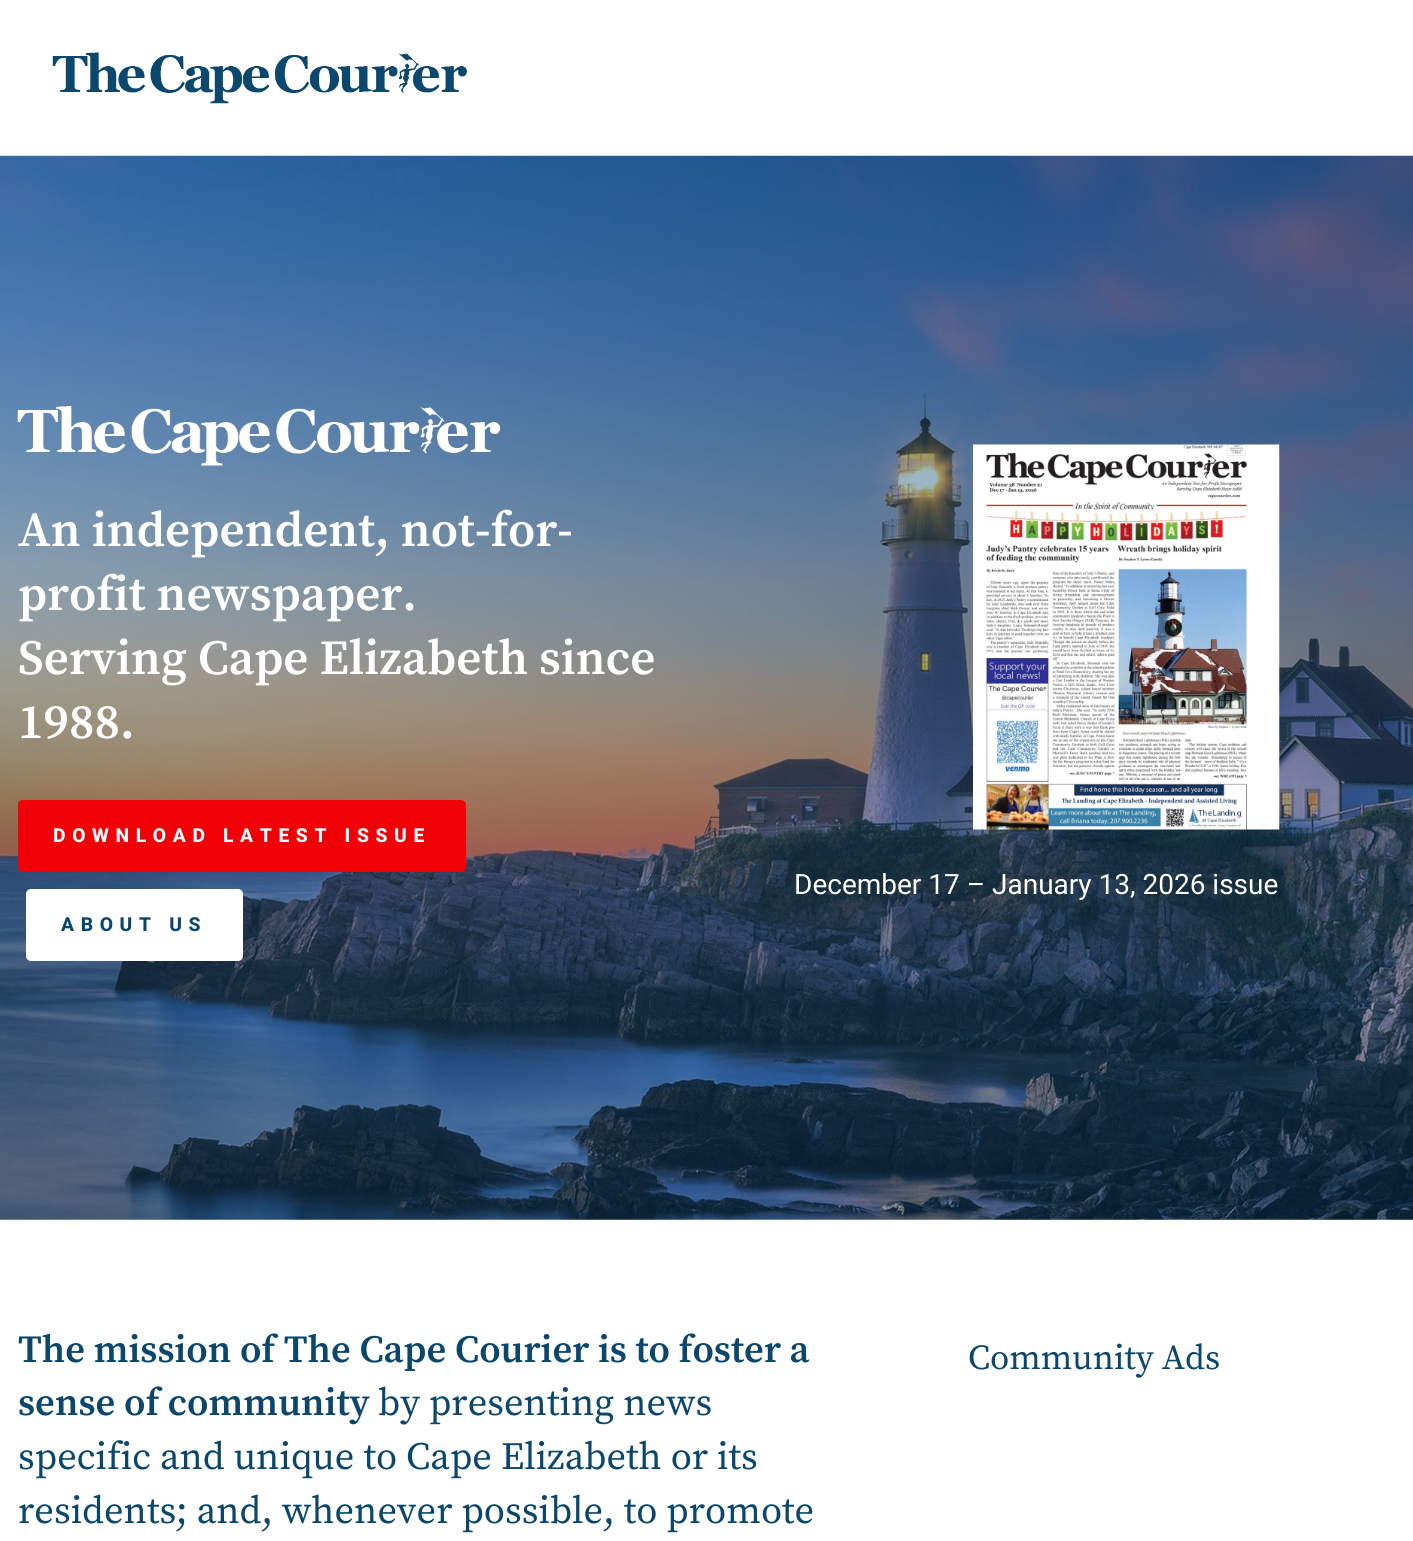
#include <cairo/cairo.h>
#include <math.h>
#include <stddef.h>

static cairo_t *cr;

static void use_color(int r, int g, int b) {
  cairo_set_source_rgb(cr, r / 255.0, g / 255.0, b / 255.0);
}

static void text(double x, double y, const char *s, const char *family, double size, int italic, int bold, int r, int g, int b) {
  cairo_select_font_face(cr, family, italic ? CAIRO_FONT_SLANT_ITALIC : CAIRO_FONT_SLANT_NORMAL,
    bold ? CAIRO_FONT_WEIGHT_BOLD : CAIRO_FONT_WEIGHT_NORMAL);
  cairo_set_font_size(cr, size);
  use_color(r, g, b);
  cairo_move_to(cr, x, y);
  cairo_show_text(cr, s);
}

static void spaced_text(double x, double y, const char *s, double letter, double word) {
  cairo_move_to(cr, x, y);
  while (*s) {
    char ch[5] = {0};
    int n = 0;
    do ch[n++] = *s++; while ((*s & 0xC0) == 0x80);
    cairo_show_text(cr, ch);
    cairo_rel_move_to(cr, letter + word * (*ch == ' '), 0);
  }
}

static void round_rect(double x, double y, double w, double h, double r) {
  cairo_new_sub_path(cr);
  cairo_arc(cr, x + w - r, y + h - r, r, 0, M_PI / 2);
  cairo_arc(cr, x + r, y + h - r, r, M_PI / 2, M_PI);
  cairo_arc(cr, x + r, y + r, r, M_PI, 1.5 * M_PI);
  cairo_arc(cr, x + w - r, y + r, r, 1.5 * M_PI, 2 * M_PI);
  cairo_close_path(cr);
}

static void picture(const char *path, double x, double y, double w, double h) {
  cairo_surface_t *image = cairo_image_surface_create_from_png(path);
  cairo_save(cr);
  cairo_set_source_surface(cr, image, x, y);
  cairo_rectangle(cr, x, y, w, h);
  cairo_fill(cr);
  cairo_restore(cr);
  cairo_surface_destroy(image);
}

static void draw(void) {
  use_color(255, 255, 255);
  cairo_paint(cr);
  picture("img_01.png", 52, 52, 416, 52);
  picture("img_02.png", 0, 155, 1413, 1065);
  picture("img_03.png", 17, 406, 484, 60);
  use_color(241, 0, 7);
  round_rect(18, 800, 448, 72, 5);
  cairo_fill(cr);
  use_color(255, 255, 255);
  round_rect(26, 889, 217, 72, 5);
  cairo_fill(cr);
  picture("img_04.png", 973, 444, 307, 386);
  text(18, 546, "An independent, not-for-", "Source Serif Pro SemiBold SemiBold", 49, 0, 0, 255, 255, 255);
  text(18, 610, "profit newspaper.", "Source Serif Pro SemiBold SemiBold", 49, 0, 0, 255, 255, 255);
  text(18, 674, "Serving Cape Elizabeth since", "Source Serif Pro SemiBold SemiBold", 49, 0, 0, 255, 255, 255);
  text(18, 738, "1988.", "Source Serif Pro SemiBold SemiBold", 49, 0, 0, 255, 255, 255);
  cairo_select_font_face(cr, "Roboto ExtraBold", CAIRO_FONT_SLANT_NORMAL, CAIRO_FONT_WEIGHT_NORMAL);
  cairo_set_font_size(cr, 19.25);
  spaced_text(53, 842, "DOWNLOAD LATEST ISSUE", 6.65, 0);
  use_color(11, 71, 109);
  spaced_text(61, 931, "ABOUT US", 6.65, 0);
  text(794, 894, "December 17 – January 13, 2026 issue", "Roboto", 28, 0, 0, 255, 255, 255);
  text(18, 1362, "The mission of The Cape Courier is to foster a", "Source Serif Pro SemiBold SemiBold", 38.5, 0, 0, 11, 71, 109);
  text(18, 1415, "sense of community", "Source Serif Pro SemiBold SemiBold", 38.5, 0, 0, 11, 71, 109);
  text(378, 1415, "by presenting news", "Source Serif Pro", 38.5, 0, 0, 11, 71, 109);
  text(18, 1469, "specific and unique to Cape Elizabeth or its", "Source Serif Pro", 38.5, 0, 0, 11, 71, 109);
  text(18, 1523, "residents; and, whenever possible, to promote", "Source Serif Pro", 38.5, 0, 0, 11, 71, 109);
  text(968, 1369, "Community Ads", "Source Serif Pro", 35, 0, 0, 11, 71, 109);
}

int main(void) {
  cairo_surface_t *surface = cairo_image_surface_create(CAIRO_FORMAT_RGB24, 1413, 1541);
  cr = cairo_create(surface);
  cairo_font_options_t *options = cairo_font_options_create();
  cairo_font_options_set_hint_metrics(options, CAIRO_HINT_METRICS_OFF);
  cairo_font_options_set_hint_style(options, CAIRO_HINT_STYLE_NONE);
  cairo_set_font_options(cr, options);
  cairo_set_miter_limit(cr, 4);
  draw();
  cairo_surface_write_to_png(surface, "out.png");
  cairo_font_options_destroy(options);
  cairo_destroy(cr);
  cairo_surface_destroy(surface);
  return 0;
}
